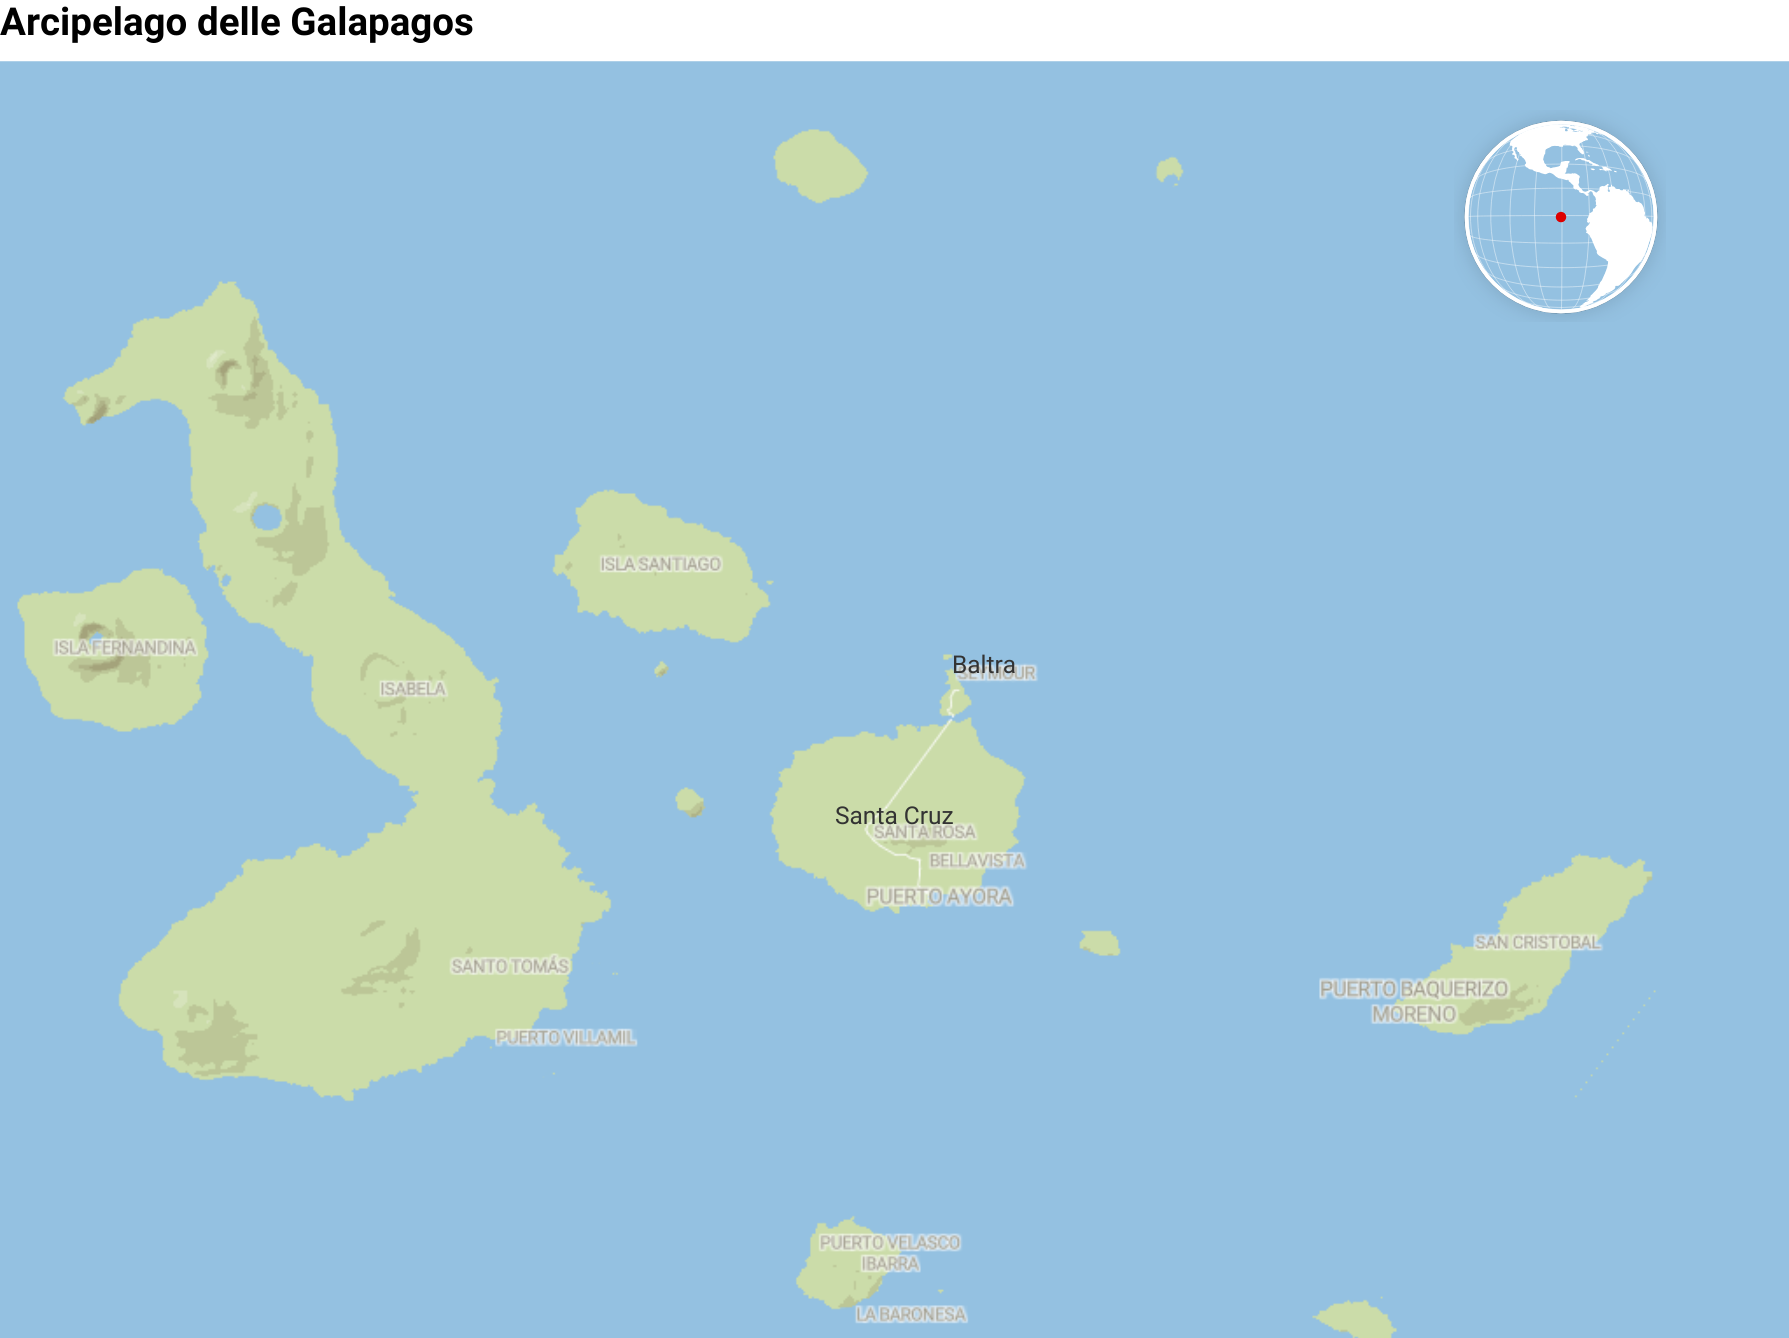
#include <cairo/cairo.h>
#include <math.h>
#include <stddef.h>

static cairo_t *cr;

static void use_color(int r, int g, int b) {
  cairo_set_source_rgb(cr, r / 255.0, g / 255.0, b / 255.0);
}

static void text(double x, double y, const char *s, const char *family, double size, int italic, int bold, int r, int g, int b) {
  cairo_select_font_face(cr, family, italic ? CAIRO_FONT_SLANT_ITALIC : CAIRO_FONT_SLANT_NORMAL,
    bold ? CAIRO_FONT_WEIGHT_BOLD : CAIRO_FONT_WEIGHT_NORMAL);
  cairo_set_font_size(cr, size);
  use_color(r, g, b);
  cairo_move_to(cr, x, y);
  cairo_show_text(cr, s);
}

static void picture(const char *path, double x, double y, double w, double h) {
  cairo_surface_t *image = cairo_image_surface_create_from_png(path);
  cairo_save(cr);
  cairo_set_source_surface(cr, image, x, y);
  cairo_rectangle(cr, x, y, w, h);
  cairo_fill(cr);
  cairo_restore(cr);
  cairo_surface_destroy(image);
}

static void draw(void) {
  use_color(255, 255, 255);
  cairo_paint(cr);
  picture("img_02.png", 0, 61, 1789, 1277);
  picture("img_01.png", 1454, 110, 212, 212);
  text(0, 35, "Arcipelago delle Galapagos", "Roboto", 38.5, 0, 1, 0, 0, 0);
  text(952, 673, "Baltra", "Roboto", 24.5, 0, 0, 51, 51, 51);
  text(835, 824, "Santa Cruz", "Roboto", 24.5, 0, 0, 51, 51, 51);
}

int main(void) {
  cairo_surface_t *surface = cairo_image_surface_create(CAIRO_FORMAT_RGB24, 1789, 1338);
  cr = cairo_create(surface);
  cairo_font_options_t *options = cairo_font_options_create();
  cairo_font_options_set_hint_metrics(options, CAIRO_HINT_METRICS_OFF);
  cairo_font_options_set_hint_style(options, CAIRO_HINT_STYLE_NONE);
  cairo_set_font_options(cr, options);
  cairo_set_miter_limit(cr, 4);
  draw();
  cairo_surface_write_to_png(surface, "out.png");
  cairo_font_options_destroy(options);
  cairo_destroy(cr);
  cairo_surface_destroy(surface);
  return 0;
}
